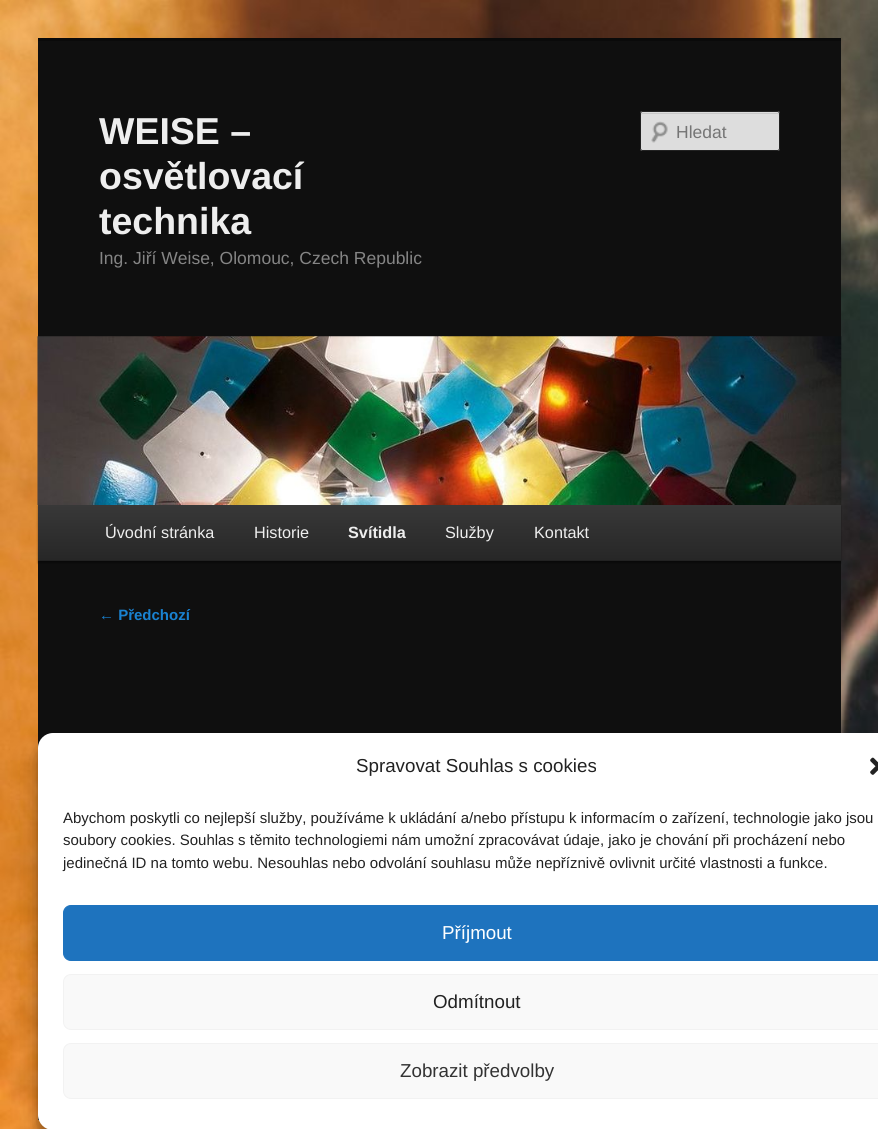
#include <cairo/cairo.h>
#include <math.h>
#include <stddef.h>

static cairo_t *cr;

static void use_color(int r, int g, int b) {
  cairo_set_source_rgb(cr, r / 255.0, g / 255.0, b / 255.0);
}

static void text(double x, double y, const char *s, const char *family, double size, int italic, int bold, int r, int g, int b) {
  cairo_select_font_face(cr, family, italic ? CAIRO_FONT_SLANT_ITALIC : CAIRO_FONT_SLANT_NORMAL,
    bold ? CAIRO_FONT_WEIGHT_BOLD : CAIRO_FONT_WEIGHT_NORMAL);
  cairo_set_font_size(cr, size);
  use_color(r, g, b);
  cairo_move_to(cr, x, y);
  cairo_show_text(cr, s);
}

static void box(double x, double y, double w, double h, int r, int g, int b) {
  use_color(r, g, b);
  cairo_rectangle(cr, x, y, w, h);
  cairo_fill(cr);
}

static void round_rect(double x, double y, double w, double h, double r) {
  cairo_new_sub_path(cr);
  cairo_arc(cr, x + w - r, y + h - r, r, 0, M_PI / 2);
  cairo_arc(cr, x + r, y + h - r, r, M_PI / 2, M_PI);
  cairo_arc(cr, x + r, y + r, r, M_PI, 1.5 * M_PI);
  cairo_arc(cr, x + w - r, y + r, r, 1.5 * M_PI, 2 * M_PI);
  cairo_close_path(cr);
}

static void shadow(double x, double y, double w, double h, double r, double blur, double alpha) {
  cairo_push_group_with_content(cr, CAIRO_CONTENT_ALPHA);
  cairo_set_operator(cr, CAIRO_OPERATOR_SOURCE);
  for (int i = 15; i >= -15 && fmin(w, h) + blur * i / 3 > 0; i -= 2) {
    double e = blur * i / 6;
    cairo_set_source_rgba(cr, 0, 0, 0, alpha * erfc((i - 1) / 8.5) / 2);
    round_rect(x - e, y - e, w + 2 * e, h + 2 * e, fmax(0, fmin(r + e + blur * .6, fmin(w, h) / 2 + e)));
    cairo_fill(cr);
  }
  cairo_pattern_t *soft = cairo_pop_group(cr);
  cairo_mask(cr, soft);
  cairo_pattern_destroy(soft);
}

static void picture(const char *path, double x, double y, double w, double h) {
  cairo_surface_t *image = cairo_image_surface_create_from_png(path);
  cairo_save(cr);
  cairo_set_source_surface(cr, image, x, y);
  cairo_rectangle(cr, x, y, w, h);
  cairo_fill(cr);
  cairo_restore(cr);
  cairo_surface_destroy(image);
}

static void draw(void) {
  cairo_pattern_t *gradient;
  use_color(255, 255, 255);
  cairo_paint(cr);
  picture("img_01.png", 0, 0, 878, 1129);
  box(38, 41, 803, 707, 15, 15, 15);
  box(38, 38, 803, 3, 10, 10, 10);
  use_color(221, 221, 221);
  round_rect(640, 111, 140, 40, 2.5);
  cairo_fill(cr);
  picture("img_02.png", 651, 121, 17, 22);
  use_color(199, 199, 199);
  cairo_new_path(cr);
  cairo_move_to(cr, 642, 114);
  cairo_line_to(cr, 778, 114);
  cairo_line_to(cr, 779, 115);
  cairo_curve_to(cr, 779, 114, 779, 113, 778, 113);
  cairo_line_to(cr, 642, 113);
  cairo_curve_to(cr, 641, 113, 641, 114, 641, 115);
  cairo_close_path(cr);
  cairo_fill(cr);
  round_rect(640.5, 111.5, 139, 39, 2);
  use_color(34, 34, 34);
  cairo_set_line_width(cr, 1);
  cairo_stroke(cr);
  use_color(0, 0, 0);
  shadow(38, 506, 803, 57, 0, 1, 0.4);
  picture("img_03.png", 37, 336, 805, 169);
  gradient = cairo_pattern_create_linear(439, 505, 439, 560);
  cairo_pattern_add_color_stop_rgba(gradient, 0, 0.22, 0.22, 0.22, 1);
  cairo_pattern_add_color_stop_rgba(gradient, 1, 0.153, 0.153, 0.153, 1);
  cairo_set_source(cr, gradient);
  cairo_pattern_destroy(gradient);
  cairo_rectangle(cr, 38, 505, 803, 55);
  cairo_fill(cr);
  box(38, 560, 803, 1, 34, 34, 34);
  box(38, 1115, 1, 5, 6, 6, 6);
  use_color(0, 0, 0);
  shadow(38, 740, 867, 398, 15, 4, 0.23);
  shadow(38, 745, 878, 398, 15, 12.5, 0.19);
  use_color(255, 255, 255);
  round_rect(38, 733, 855, 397, 15);
  cairo_fill(cr);
  picture("img_04.png", 870, 757, 8, 18);
  use_color(30, 115, 190);
  round_rect(63.5, 905.5, 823, 55, 7.5);
  cairo_fill_preserve(cr);
  cairo_stroke(cr);
  use_color(249, 249, 249);
  round_rect(63.5, 974.5, 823, 55, 7.5);
  cairo_fill_preserve(cr);
  use_color(242, 242, 242);
  cairo_stroke(cr);
  use_color(249, 249, 249);
  round_rect(63.5, 1043.5, 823, 55, 7.5);
  cairo_fill_preserve(cr);
  use_color(242, 242, 242);
  cairo_stroke(cr);
  text(99, 144, "WEISE –", "Liberation Sans", 37.5, 0, 1, 238, 238, 238);
  text(99, 189, "osvětlovací", "Liberation Sans", 37.5, 0, 1, 238, 238, 238);
  text(99, 234, "technika", "Liberation Sans", 37.5, 0, 1, 238, 238, 238);
  text(99, 264, "Ing. Jiří Weise, Olomouc, Czech Republic", "Liberation Sans", 17.5, 0, 0, 133, 133, 133);
  text(676, 138, "Hledat", "Liberation Sans", 17.5, 0, 0, 117, 117, 117);
  text(105, 538, "Úvodní stránka", "Liberation Sans", 16.25, 0, 0, 238, 238, 238);
  text(254, 538, "Historie", "Liberation Sans", 16.25, 0, 0, 238, 238, 238);
  text(348, 538, "Svítidla", "Liberation Sans", 16.25, 0, 1, 238, 238, 238);
  text(445, 538, "Služby", "Liberation Sans", 16.25, 0, 0, 238, 238, 238);
  text(534, 538, "Kontakt", "Liberation Sans", 16.25, 0, 0, 238, 238, 238);
  text(99, 620, "← Předchozí", "Liberation Sans", 15, 0, 1, 25, 130, 209);
  text(356, 772, "Spravovat Souhlas s cookies", "Liberation Sans", 18.75, 0, 0, 34, 34, 34);
  text(63, 823, "Abychom poskytli co nejlepší služby, používáme k ukládání a/nebo přístupu k informacím o zařízení, technologie jako jsou", "Liberation Sans", 15, 0, 0, 34, 34, 34);
  text(63, 845, "soubory cookies. Souhlas s těmito technologiemi nám umožní zpracovávat údaje, jako je chování při procházení nebo", "Liberation Sans", 15, 0, 0, 34, 34, 34);
  text(63, 868, "jedinečná ID na tomto webu. Nesouhlas nebo odvolání souhlasu může nepříznivě ovlivnit určité vlastnosti a funkce.", "Liberation Sans", 15, 0, 0, 34, 34, 34);
  text(442, 939, "Příjmout", "Liberation Sans", 18.75, 0, 0, 255, 255, 255);
  text(433, 1008, "Odmítnout", "Liberation Sans", 18.75, 0, 0, 34, 34, 34);
  text(400, 1077, "Zobrazit předvolby", "Liberation Sans", 18.75, 0, 0, 51, 51, 51);
}

int main(void) {
  cairo_surface_t *surface = cairo_image_surface_create(CAIRO_FORMAT_RGB24, 878, 1129);
  cr = cairo_create(surface);
  cairo_font_options_t *options = cairo_font_options_create();
  cairo_font_options_set_hint_metrics(options, CAIRO_HINT_METRICS_OFF);
  cairo_font_options_set_hint_style(options, CAIRO_HINT_STYLE_NONE);
  cairo_set_font_options(cr, options);
  cairo_set_miter_limit(cr, 4);
  draw();
  cairo_surface_write_to_png(surface, "out.png");
  cairo_font_options_destroy(options);
  cairo_destroy(cr);
  cairo_surface_destroy(surface);
  return 0;
}
